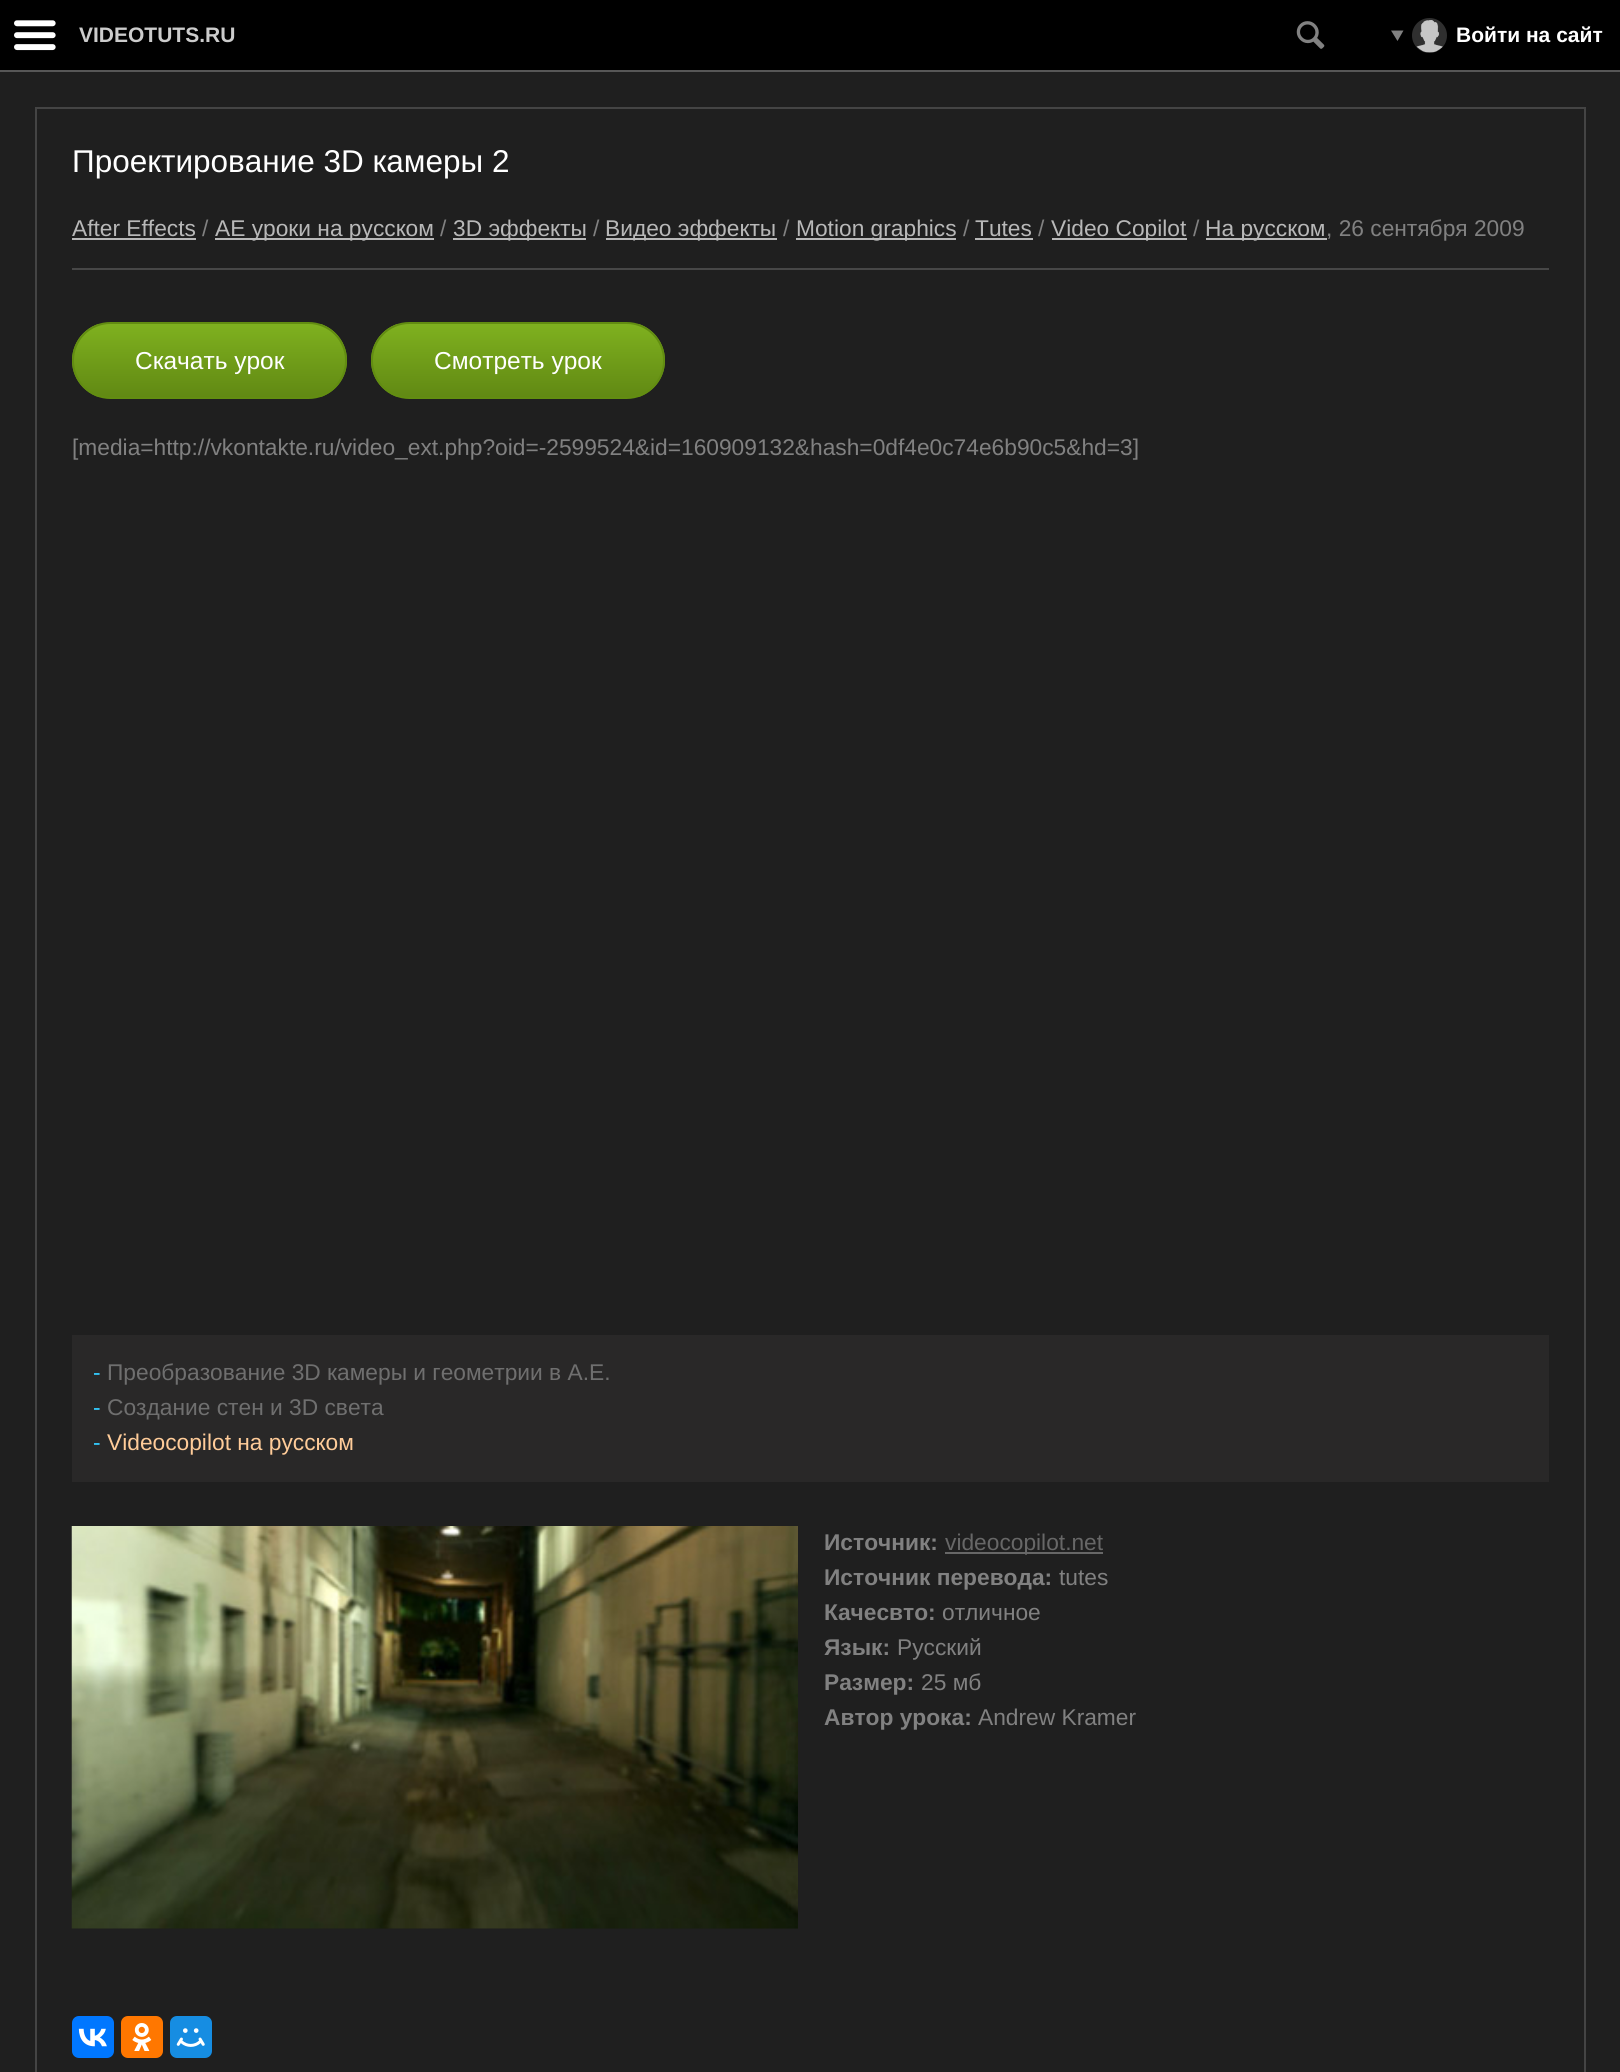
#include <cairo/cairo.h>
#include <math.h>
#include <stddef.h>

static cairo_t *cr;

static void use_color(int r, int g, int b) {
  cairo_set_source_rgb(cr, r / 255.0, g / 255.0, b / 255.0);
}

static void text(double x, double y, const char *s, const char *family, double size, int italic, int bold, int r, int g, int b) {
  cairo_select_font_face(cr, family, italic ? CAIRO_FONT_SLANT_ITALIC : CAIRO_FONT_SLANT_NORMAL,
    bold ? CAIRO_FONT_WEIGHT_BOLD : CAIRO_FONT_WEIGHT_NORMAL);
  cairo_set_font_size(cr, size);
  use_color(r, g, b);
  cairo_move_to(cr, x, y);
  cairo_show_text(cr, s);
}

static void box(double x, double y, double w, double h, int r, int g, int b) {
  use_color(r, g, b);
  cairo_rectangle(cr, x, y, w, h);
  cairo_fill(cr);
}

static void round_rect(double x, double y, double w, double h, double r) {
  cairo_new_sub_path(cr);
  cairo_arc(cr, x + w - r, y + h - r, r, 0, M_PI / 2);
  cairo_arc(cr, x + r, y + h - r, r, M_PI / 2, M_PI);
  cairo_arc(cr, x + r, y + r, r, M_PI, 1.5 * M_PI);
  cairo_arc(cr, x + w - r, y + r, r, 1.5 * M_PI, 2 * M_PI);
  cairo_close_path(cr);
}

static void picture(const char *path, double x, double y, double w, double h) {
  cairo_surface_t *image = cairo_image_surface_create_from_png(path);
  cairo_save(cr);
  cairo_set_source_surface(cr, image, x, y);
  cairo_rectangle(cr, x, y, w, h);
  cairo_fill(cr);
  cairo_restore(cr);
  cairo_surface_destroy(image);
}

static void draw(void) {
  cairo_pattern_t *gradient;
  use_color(0, 0, 0);
  cairo_paint(cr);
  box(0, 70, 1620, 2, 87, 87, 87);
  picture("img_01.png", 14, 20, 42, 31);
  picture("img_02.png", 1296, 21, 29, 28);
  use_color(129, 129, 129);
  cairo_new_path(cr);
  cairo_move_to(cr, 1403.5, 30.5);
  cairo_line_to(cr, 1397.5, 41);
  cairo_line_to(cr, 1391, 30.5);
  cairo_close_path(cr);
  cairo_fill(cr);
  use_color(47, 47, 47);
  cairo_arc(cr, 1429.5, 35.5, 17.5, 0, 2 * M_PI);
  cairo_fill(cr);
  picture("img_03.png", 1416, 20, 27, 33);
  box(0, 72, 1620, 2000, 31, 31, 31);
  cairo_rectangle(cr, 36, 108, 1549, 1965);
  use_color(68, 68, 68);
  cairo_stroke(cr);
  box(72, 268, 1477, 2, 71, 71, 71);
  box(72, 238, 124, 2, 184, 184, 184);
  box(215, 238, 219, 2, 184, 184, 184);
  box(453, 238, 133, 2, 184, 184, 184);
  box(606, 238, 171, 2, 184, 184, 184);
  box(796, 238, 160, 2, 184, 184, 184);
  box(975, 238, 58, 2, 184, 184, 184);
  box(1052, 238, 135, 2, 184, 184, 184);
  box(1206, 238, 121, 2, 184, 184, 184);
  cairo_save(cr);
  round_rect(72, 322, 275, 77, 38.5);
  cairo_clip(cr);
  gradient = cairo_pattern_create_linear(209, 397, 209, 324);
  cairo_pattern_add_color_stop_rgba(gradient, 0, 0.38, 0.537, 0.075, 1);
  cairo_pattern_add_color_stop_rgba(gradient, 1, 0.498, 0.694, 0.122, 1);
  cairo_set_source(cr, gradient);
  cairo_pattern_destroy(gradient);
  cairo_rectangle(cr, 72, 324, 275, 73);
  cairo_fill(cr);
  cairo_restore(cr);
  round_rect(73, 323, 273, 75, 37.5);
  use_color(98, 141, 17);
  cairo_stroke(cr);
  cairo_save(cr);
  round_rect(371, 322, 294, 77, 38.5);
  cairo_clip(cr);
  gradient = cairo_pattern_create_linear(518, 397, 518, 324);
  cairo_pattern_add_color_stop_rgba(gradient, 0, 0.38, 0.537, 0.075, 1);
  cairo_pattern_add_color_stop_rgba(gradient, 1, 0.498, 0.694, 0.122, 1);
  cairo_set_source(cr, gradient);
  cairo_pattern_destroy(gradient);
  cairo_rectangle(cr, 371, 324, 294, 73);
  cairo_fill(cr);
  cairo_restore(cr);
  round_rect(372, 323, 292, 75, 37.5);
  cairo_stroke(cr);
  box(72, 1335, 1477, 147, 41, 40, 40);
  picture("img_04.png", 71, 1526, 727, 403);
  box(945, 1552, 158, 2, 103, 103, 103);
  use_color(0, 119, 255);
  round_rect(72, 2016, 42, 42, 7);
  cairo_fill(cr);
  picture("img_05.png", 78, 2028, 29, 19);
  use_color(255, 119, 0);
  round_rect(121, 2016, 42, 42, 7);
  cairo_fill(cr);
  picture("img_06.png", 132, 2023, 20, 28);
  use_color(22, 141, 226);
  round_rect(170, 2016, 42, 42, 7);
  cairo_fill(cr);
  picture("img_07.png", 176, 2028, 29, 19);
  text(79, 42, "VIDEOTUTS.RU", "Liberation Sans", 21, 0, 1, 204, 204, 204);
  text(1456, 42, "Войти на сайт", "Liberation Sans", 21, 0, 1, 255, 255, 255);
  text(72, 172, "Проектирование 3D камеры 2", "Liberation Sans", 31.5, 0, 0, 255, 255, 255);
  text(72, 236, "After Effects", "Liberation Sans", 22.75, 0, 0, 184, 184, 184);
  text(202, 236, "/", "Liberation Sans", 22.75, 0, 0, 129, 129, 129);
  text(215, 236, "AE уроки на русском", "Liberation Sans", 22.75, 0, 0, 184, 184, 184);
  text(440, 236, "/", "Liberation Sans", 22.75, 0, 0, 129, 129, 129);
  text(453, 236, "3D эффекты", "Liberation Sans", 22.75, 0, 0, 184, 184, 184);
  text(593, 236, "/", "Liberation Sans", 22.75, 0, 0, 129, 129, 129);
  text(605, 236, "Видео эффекты", "Liberation Sans", 22.75, 0, 0, 184, 184, 184);
  text(783, 236, "/", "Liberation Sans", 22.75, 0, 0, 129, 129, 129);
  text(796, 236, "Motion graphics", "Liberation Sans", 22.75, 0, 0, 184, 184, 184);
  text(963, 236, "/", "Liberation Sans", 22.75, 0, 0, 129, 129, 129);
  text(975, 236, "Tutes", "Liberation Sans", 22.75, 0, 0, 184, 184, 184);
  text(1038, 236, "/", "Liberation Sans", 22.75, 0, 0, 129, 129, 129);
  text(1051, 236, "Video Copilot", "Liberation Sans", 22.75, 0, 0, 184, 184, 184);
  text(1193, 236, "/", "Liberation Sans", 22.75, 0, 0, 129, 129, 129);
  text(1205, 236, "На русском", "Liberation Sans", 22.75, 0, 0, 184, 184, 184);
  text(1326, 236, ", 26 сентября 2009", "Liberation Sans", 22.75, 0, 0, 129, 129, 129);
  text(135, 369, "Скачать урок", "Liberation Sans", 24.5, 0, 0, 255, 255, 255);
  text(434, 369, "Смотреть урок", "Liberation Sans", 24.5, 0, 0, 255, 255, 255);
  text(72, 455, "[media=http://vkontakte.ru/video_ext.php?oid=-2599524&id=160909132&hash=0df4e0c74e6b90c5&hd=3]", "Liberation Sans", 22.75, 0, 0, 129, 129, 129);
  text(93, 1380, "-", "Liberation Sans", 22.75, 0, 0, 51, 204, 255);
  text(107, 1380, "Преобразование 3D камеры и геометрии в A.E.", "Liberation Sans", 22.75, 0, 0, 111, 111, 111);
  text(93, 1415, "-", "Liberation Sans", 22.75, 0, 0, 51, 204, 255);
  text(107, 1415, "Создание стен и 3D света", "Liberation Sans", 22.75, 0, 0, 111, 111, 111);
  text(93, 1450, "-", "Liberation Sans", 22.75, 0, 0, 51, 204, 255);
  text(107, 1450, "Videocopilot на русском", "Liberation Sans", 22.75, 0, 0, 255, 204, 153);
  text(824, 1550, "Источник:", "Liberation Sans", 22.75, 0, 1, 129, 129, 129);
  text(945, 1550, "videocopilot.net", "Liberation Sans", 22.75, 0, 0, 103, 103, 103);
  text(824, 1585, "Источник перевода:", "Liberation Sans", 22.75, 0, 1, 129, 129, 129);
  text(1059, 1585, "tutes", "Liberation Sans", 22.75, 0, 0, 129, 129, 129);
  text(824, 1620, "Качесвто:", "Liberation Sans", 22.75, 0, 1, 129, 129, 129);
  text(942, 1620, "отличное", "Liberation Sans", 22.75, 0, 0, 129, 129, 129);
  text(824, 1655, "Язык:", "Liberation Sans", 22.75, 0, 1, 129, 129, 129);
  text(897, 1655, "Русский", "Liberation Sans", 22.75, 0, 0, 129, 129, 129);
  text(824, 1690, "Размер:", "Liberation Sans", 22.75, 0, 1, 129, 129, 129);
  text(921, 1690, "25 мб", "Liberation Sans", 22.75, 0, 0, 129, 129, 129);
  text(824, 1725, "Автор урока:", "Liberation Sans", 22.75, 0, 1, 129, 129, 129);
  text(978, 1725, "Andrew Kramer", "Liberation Sans", 22.75, 0, 0, 129, 129, 129);
}

int main(void) {
  cairo_surface_t *surface = cairo_image_surface_create(CAIRO_FORMAT_RGB24, 1620, 2072);
  cr = cairo_create(surface);
  cairo_font_options_t *options = cairo_font_options_create();
  cairo_font_options_set_hint_metrics(options, CAIRO_HINT_METRICS_OFF);
  cairo_font_options_set_hint_style(options, CAIRO_HINT_STYLE_NONE);
  cairo_set_font_options(cr, options);
  cairo_set_miter_limit(cr, 4);
  draw();
  cairo_surface_write_to_png(surface, "out.png");
  cairo_font_options_destroy(options);
  cairo_destroy(cr);
  cairo_surface_destroy(surface);
  return 0;
}
